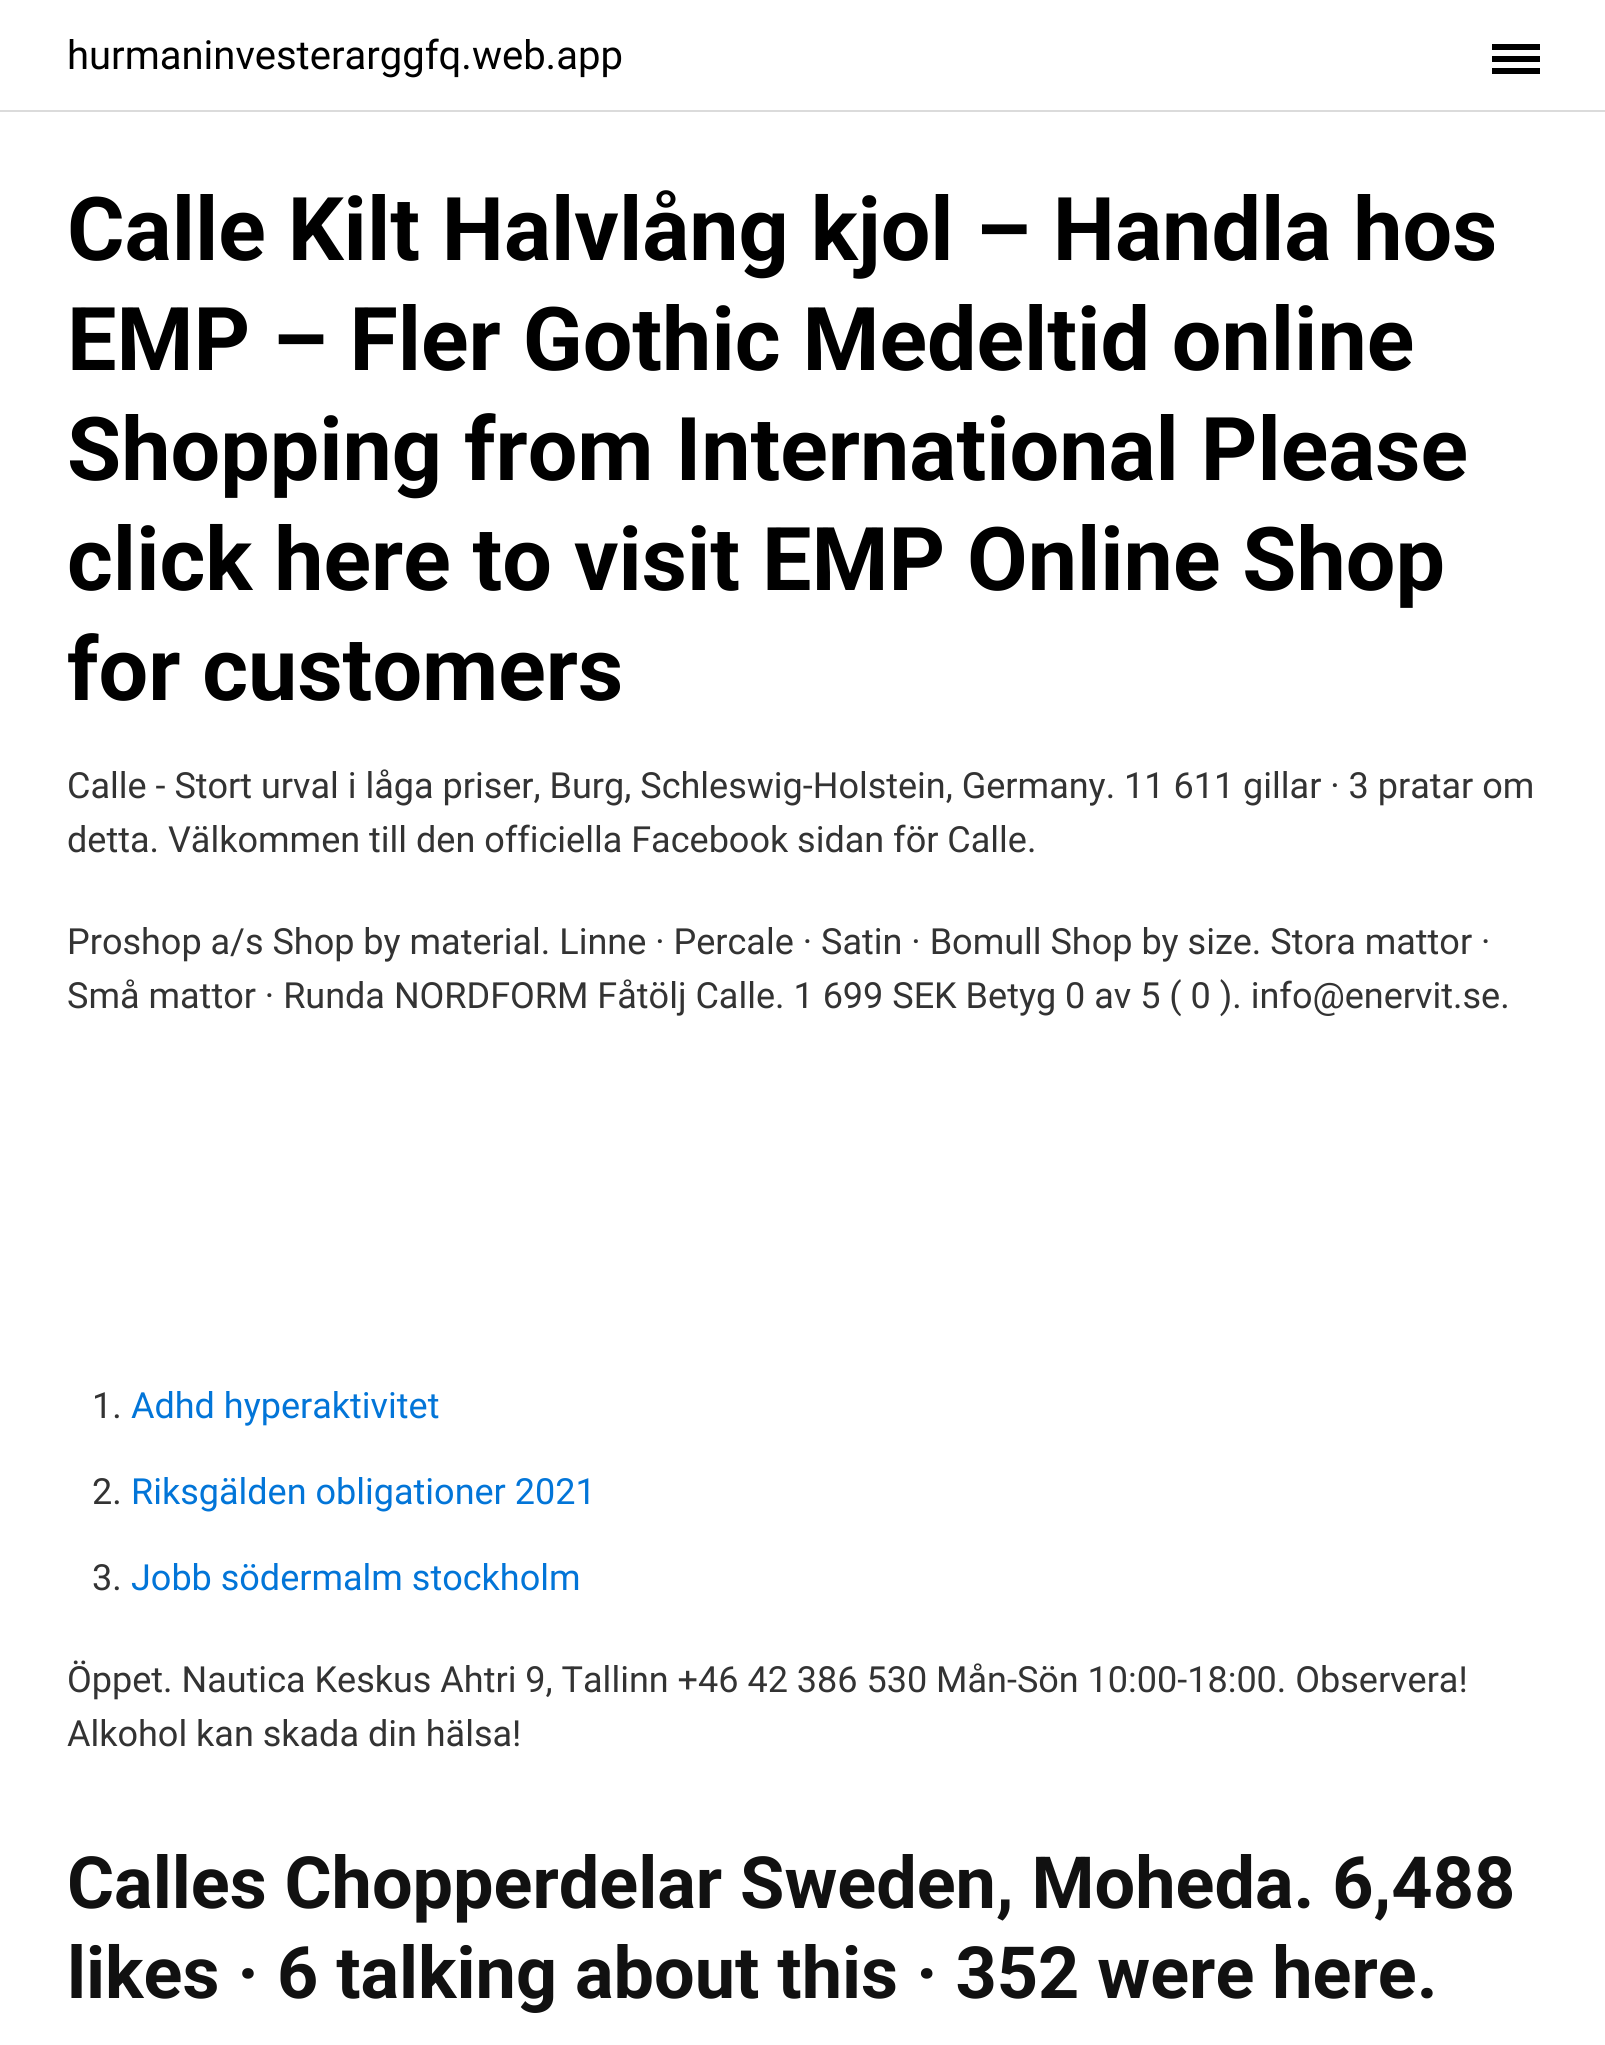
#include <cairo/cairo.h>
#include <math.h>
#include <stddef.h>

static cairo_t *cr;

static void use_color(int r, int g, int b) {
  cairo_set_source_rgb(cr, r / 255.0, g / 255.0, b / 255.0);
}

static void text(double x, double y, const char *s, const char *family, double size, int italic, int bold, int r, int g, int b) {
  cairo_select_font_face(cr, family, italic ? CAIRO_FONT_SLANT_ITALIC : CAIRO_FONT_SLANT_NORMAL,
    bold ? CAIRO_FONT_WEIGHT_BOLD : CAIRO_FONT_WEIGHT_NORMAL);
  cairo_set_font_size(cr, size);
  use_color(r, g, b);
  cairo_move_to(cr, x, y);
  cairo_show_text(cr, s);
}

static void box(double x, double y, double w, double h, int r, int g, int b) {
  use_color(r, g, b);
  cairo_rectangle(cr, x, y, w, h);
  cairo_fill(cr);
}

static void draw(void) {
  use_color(255, 255, 255);
  cairo_paint(cr);
  box(0, 110, 1605, 2, 219, 219, 219);
  box(1492, 56, 48, 6, 0, 0, 0);
  box(1492, 44, 48, 6, 0, 0, 0);
  box(1492, 68, 48, 6, 0, 0, 0);
  text(67, 69, "hurmaninvesterarggfq.web.app", "Roboto", 40, 0, 0, 0, 0, 0);
  text(67, 260, "Calle Kilt Halvlång kjol – Handla hos", "Roboto", 88, 0, 1, 0, 0, 0);
  text(67, 370, "EMP – Fler Gothic Medeltid online", "Roboto", 88, 0, 1, 0, 0, 0);
  text(67, 480, "Shopping from International Please", "Roboto", 88, 0, 1, 0, 0, 0);
  text(67, 590, "click here to visit EMP Online Shop", "Roboto", 88, 0, 1, 0, 0, 0);
  text(67, 700, "for customers", "Roboto", 88, 0, 1, 0, 0, 0);
  text(67, 798, "Calle - Stort urval i låga priser, Burg, Schleswig-Holstein, Germany. 11 611 gillar · 3 pratar om", "Roboto", 36, 0, 0, 51, 51, 51);
  text(67, 852, "detta. Välkommen till den officiella Facebook sidan för Calle.", "Roboto", 36, 0, 0, 51, 51, 51);
  text(67, 954, "Proshop a/s Shop by material. Linne · Percale · Satin · Bomull Shop by size. Stora mattor ·", "Roboto", 36, 0, 0, 51, 51, 51);
  text(67, 1008, "Små mattor · Runda NORDFORM Fåtölj Calle. 1 699 SEK Betyg 0 av 5 ( 0 ). info@enervit.se.", "Roboto", 36, 0, 0, 51, 51, 51);
  text(92, 1418, "1.", "Roboto", 36, 0, 0, 51, 51, 51);
  text(131, 1418, "Adhd hyperaktivitet", "Roboto", 36, 0, 0, 2, 117, 216);
  text(92, 1504, "2.", "Roboto", 36, 0, 0, 51, 51, 51);
  text(131, 1504, "Riksgälden obligationer 2021", "Roboto", 36, 0, 0, 2, 117, 216);
  text(92, 1590, "3.", "Roboto", 36, 0, 0, 51, 51, 51);
  text(131, 1590, "Jobb södermalm stockholm", "Roboto", 36, 0, 0, 2, 117, 216);
  text(67, 1692, "Öppet. Nautica Keskus Ahtri 9, Tallinn +46 42 386 530 Mån-Sön 10:00-18:00. Observera!", "Roboto", 36, 0, 0, 51, 51, 51);
  text(67, 1746, "Alkohol kan skada din hälsa!", "Roboto", 36, 0, 0, 51, 51, 51);
  text(67, 1908, "Calles Chopperdelar Sweden, Moheda. 6,488", "Roboto", 72, 0, 1, 17, 17, 17);
  text(67, 1998, "likes · 6 talking about this · 352 were here.", "Roboto", 72, 0, 1, 17, 17, 17);
}

int main(void) {
  cairo_surface_t *surface = cairo_image_surface_create(CAIRO_FORMAT_RGB24, 1605, 2045);
  cr = cairo_create(surface);
  cairo_font_options_t *options = cairo_font_options_create();
  cairo_font_options_set_hint_metrics(options, CAIRO_HINT_METRICS_OFF);
  cairo_font_options_set_hint_style(options, CAIRO_HINT_STYLE_NONE);
  cairo_set_font_options(cr, options);
  cairo_set_miter_limit(cr, 4);
  draw();
  cairo_surface_write_to_png(surface, "out.png");
  cairo_font_options_destroy(options);
  cairo_destroy(cr);
  cairo_surface_destroy(surface);
  return 0;
}
